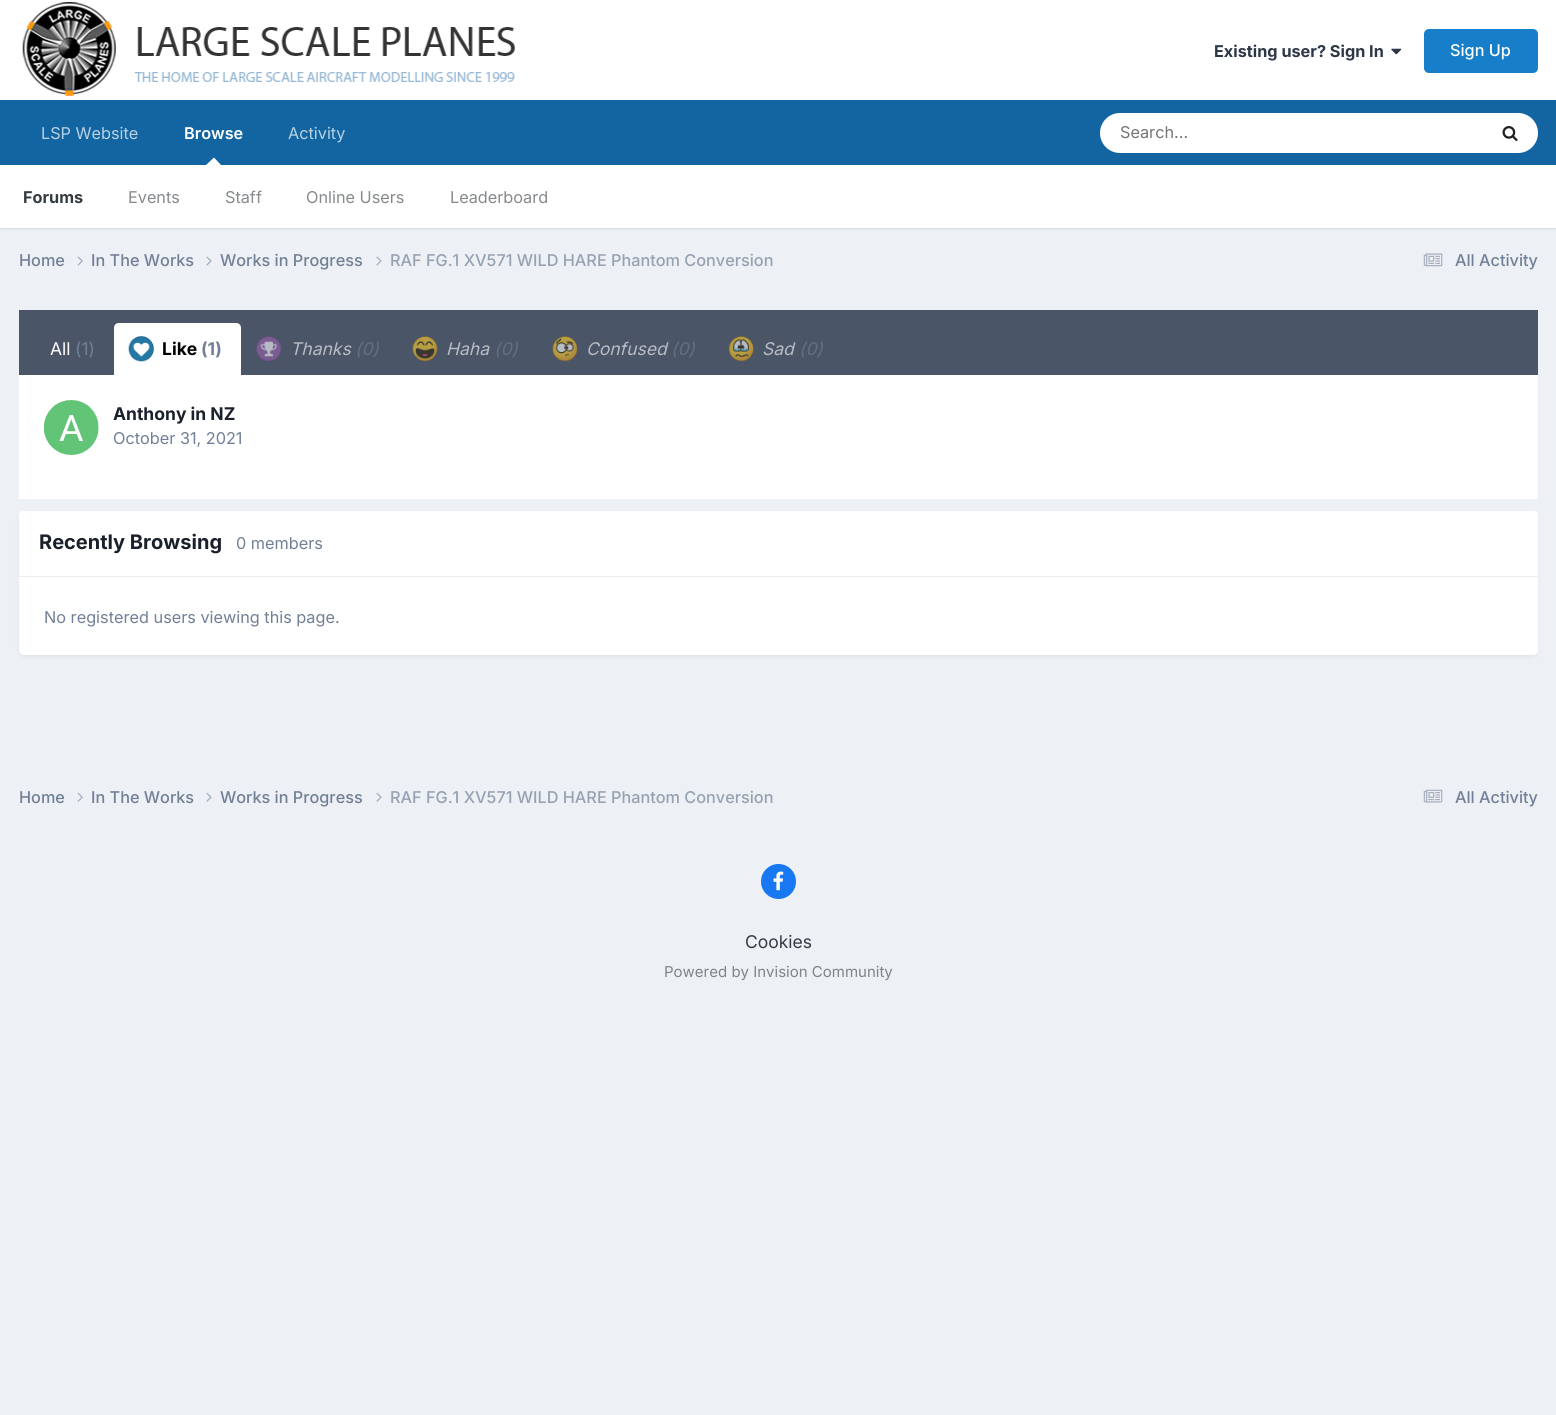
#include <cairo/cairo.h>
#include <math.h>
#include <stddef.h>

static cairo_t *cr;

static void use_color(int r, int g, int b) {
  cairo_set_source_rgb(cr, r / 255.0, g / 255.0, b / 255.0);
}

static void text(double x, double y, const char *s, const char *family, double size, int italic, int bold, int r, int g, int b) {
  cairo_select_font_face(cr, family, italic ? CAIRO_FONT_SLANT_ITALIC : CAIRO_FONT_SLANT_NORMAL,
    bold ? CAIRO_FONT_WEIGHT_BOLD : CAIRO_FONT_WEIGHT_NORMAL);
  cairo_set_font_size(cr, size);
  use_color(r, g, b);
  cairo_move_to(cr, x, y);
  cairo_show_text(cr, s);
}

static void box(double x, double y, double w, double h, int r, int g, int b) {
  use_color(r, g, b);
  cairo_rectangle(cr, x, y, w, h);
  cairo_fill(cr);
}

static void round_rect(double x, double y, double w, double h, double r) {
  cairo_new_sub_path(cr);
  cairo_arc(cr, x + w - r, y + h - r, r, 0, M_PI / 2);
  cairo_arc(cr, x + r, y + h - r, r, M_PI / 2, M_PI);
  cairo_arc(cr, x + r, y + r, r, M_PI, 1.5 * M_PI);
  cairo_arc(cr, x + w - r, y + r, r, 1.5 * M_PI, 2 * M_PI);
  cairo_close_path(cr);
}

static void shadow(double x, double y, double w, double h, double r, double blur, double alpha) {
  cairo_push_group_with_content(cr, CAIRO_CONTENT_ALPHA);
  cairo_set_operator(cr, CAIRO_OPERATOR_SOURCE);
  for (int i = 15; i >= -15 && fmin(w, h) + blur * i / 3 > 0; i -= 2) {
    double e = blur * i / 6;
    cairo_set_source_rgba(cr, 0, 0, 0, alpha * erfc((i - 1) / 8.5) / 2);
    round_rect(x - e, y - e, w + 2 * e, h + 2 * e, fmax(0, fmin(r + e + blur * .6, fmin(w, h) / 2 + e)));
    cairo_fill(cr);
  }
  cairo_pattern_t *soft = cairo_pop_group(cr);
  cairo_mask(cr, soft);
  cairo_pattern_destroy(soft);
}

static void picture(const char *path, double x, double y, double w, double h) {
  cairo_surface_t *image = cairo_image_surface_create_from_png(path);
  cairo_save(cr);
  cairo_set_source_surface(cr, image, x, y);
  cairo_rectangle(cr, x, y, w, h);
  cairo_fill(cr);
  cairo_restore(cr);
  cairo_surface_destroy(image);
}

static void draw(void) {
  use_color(237, 240, 244);
  cairo_paint(cr);
  box(0, 0, 1556, 100, 255, 255, 255);
  picture("img_01.png", 22, 2, 493, 94);
  picture("img_02.png", 1391, 48, 11, 7);
  use_color(23, 126, 201);
  round_rect(1424, 29, 114, 44, 5);
  cairo_fill(cr);
  box(0, 100, 1556, 65, 18, 101, 161);
  use_color(0, 0, 0);
  shadow(0, 166, 1556, 63, 0, 1, 0.1);
  use_color(255, 255, 255);
  cairo_new_path(cr);
  cairo_move_to(cr, 221, 165);
  cairo_line_to(cr, 206, 165);
  cairo_line_to(cr, 214, 157.5);
  cairo_close_path(cr);
  cairo_fill(cr);
  round_rect(1100, 113, 438, 40, 20);
  cairo_fill(cr);
  picture("img_03.png", 1502, 126, 16, 16);
  box(0, 165, 1556, 63, 255, 255, 255);
  picture("img_04.png", 77, 256, 6, 10);
  picture("img_05.png", 206, 256, 6, 10);
  picture("img_05.png", 376, 256, 6, 10);
  picture("img_06.png", 1423, 253, 20, 14);
  box(19, 310, 1519, 65, 74, 85, 104);
  use_color(255, 255, 255);
  cairo_new_path(cr);
  cairo_move_to(cr, 119, 323);
  cairo_line_to(cr, 236, 323);
  cairo_curve_to(cr, 239, 323, 241, 325, 241, 328);
  cairo_line_to(cr, 241, 375);
  cairo_line_to(cr, 114, 375);
  cairo_line_to(cr, 114, 328);
  cairo_curve_to(cr, 114, 325, 116, 323, 119, 323);
  cairo_close_path(cr);
  cairo_fill(cr);
  picture("img_07.png", 128, 336, 26, 26);
  picture("img_08.png", 256, 336, 26, 26);
  picture("img_09.png", 412, 336, 26, 26);
  picture("img_10.png", 552, 336, 26, 26);
  picture("img_11.png", 728, 336, 26, 26);
  box(19, 375, 1519, 124, 255, 255, 255);
  picture("img_12.png", 44, 400, 55, 55);
  use_color(45, 55, 72);
  shadow(20, 515, 1516, 141, 4, 2.5, 0.1);
  use_color(255, 255, 255);
  round_rect(19, 511, 1519, 144, 5);
  cairo_fill(cr);
  cairo_new_path(cr);
  cairo_move_to(cr, 24, 511);
  cairo_line_to(cr, 1533, 511);
  cairo_curve_to(cr, 1536, 511, 1538, 513, 1538, 516);
  cairo_line_to(cr, 1538, 578);
  cairo_line_to(cr, 19, 578);
  cairo_line_to(cr, 19, 516);
  cairo_curve_to(cr, 19, 513, 21, 511, 24, 511);
  cairo_close_path(cr);
  cairo_fill(cr);
  box(19, 576, 1519, 1, 234, 236, 239);
  picture("img_13.png", 77, 792, 6, 10);
  picture("img_14.png", 206, 792, 6, 10);
  picture("img_14.png", 376, 792, 6, 10);
  picture("img_15.png", 1423, 789, 20, 14);
  use_color(23, 120, 242);
  cairo_arc(cr, 778.5, 881.5, 17.5, 0, 2 * M_PI);
  cairo_fill(cr);
  picture("img_16.png", 773, 871, 11, 20);
  text(1214, 57, "Existing user? Sign In", "Inter", 16.25, 0, 1, 45, 55, 72);
  text(1450, 56, "Sign Up", "Inter Medium", 16.25, 0, 0, 255, 255, 255);
  text(41, 139, "LSP Website", "Inter", 16.25, 0, 0, 184, 209, 227);
  text(288, 139, "Activity", "Inter", 16.25, 0, 0, 184, 209, 227);
  text(184, 139, "Browse", "Inter SemiBold", 16.25, 0, 0, 255, 255, 255);
  text(23, 203, "Forums", "Inter", 16.25, 0, 1, 53, 60, 65);
  text(128, 203, "Events", "Inter", 16.25, 0, 0, 134, 138, 141);
  text(225, 203, "Staff", "Inter", 16.25, 0, 0, 134, 138, 141);
  text(306, 203, "Online Users", "Inter", 16.25, 0, 0, 134, 138, 141);
  text(450, 203, "Leaderboard", "Inter", 16.25, 0, 0, 134, 138, 141);
  text(1120, 138, "Search...", "Inter", 16.25, 0, 0, 117, 117, 117);
  text(19, 266, "Home", "Inter Medium", 16.25, 0, 0, 113, 128, 150);
  text(91, 266, "In The Works", "Inter Medium", 16.25, 0, 0, 113, 128, 150);
  text(220, 266, "Works in Progress", "Inter Medium", 16.25, 0, 0, 113, 128, 150);
  text(390, 266, "RAF FG.1 XV571 WILD HARE Phantom Conversion", "Inter Medium", 16.25, 0, 0, 150, 162, 178);
  text(1455, 266, "All Activity", "Inter Medium", 16.25, 0, 0, 113, 128, 150);
  text(50, 355, "All", "Inter", 17.5, 0, 0, 255, 255, 255);
  text(75, 355, "(1)", "Inter", 17.5, 0, 0, 113, 128, 150);
  text(162, 355, "Like", "Inter", 17.5, 0, 1, 0, 0, 0);
  text(201, 355, "(1)", "Inter", 17.5, 0, 1, 113, 128, 150);
  text(290, 355, "Thanks", "Inter", 17.5, 1, 0, 183, 187, 195);
  text(355, 355, "(0)", "Inter", 17.5, 1, 0, 97, 111, 132);
  text(446, 355, "Haha", "Inter", 17.5, 1, 0, 183, 187, 195);
  text(494, 355, "(0)", "Inter", 17.5, 1, 0, 97, 111, 132);
  text(586, 355, "Confused", "Inter", 17.5, 1, 0, 183, 187, 195);
  text(671, 355, "(0)", "Inter", 17.5, 1, 0, 97, 111, 132);
  text(762, 355, "Sad", "Inter", 17.5, 1, 0, 183, 187, 195);
  text(799, 355, "(0)", "Inter", 17.5, 1, 0, 97, 111, 132);
  text(113, 420, "Anthony in NZ", "Inter", 17.5, 0, 1, 26, 32, 44);
  text(113, 444, "October 31, 2021", "Inter", 16.25, 0, 0, 113, 128, 150);
  text(39, 549, "Recently Browsing", "Inter", 20, 0, 1, 26, 32, 44);
  text(236, 549, "0 members", "Inter", 16.25, 0, 0, 113, 128, 150);
  text(44, 623, "No registered users viewing this page.", "Inter", 16.25, 0, 0, 113, 128, 150);
  text(19, 803, "Home", "Inter Medium", 16.25, 0, 0, 113, 128, 150);
  text(91, 803, "In The Works", "Inter Medium", 16.25, 0, 0, 113, 128, 150);
  text(220, 803, "Works in Progress", "Inter Medium", 16.25, 0, 0, 113, 128, 150);
  text(390, 803, "RAF FG.1 XV571 WILD HARE Phantom Conversion", "Inter Medium", 16.25, 0, 0, 150, 162, 178);
  text(1455, 803, "All Activity", "Inter Medium", 16.25, 0, 0, 113, 128, 150);
  text(745, 948, "Cookies", "Inter", 17.5, 0, 0, 53, 60, 65);
  text(664, 977, "Powered by Invision Community", "Inter", 15, 0, 0, 127, 132, 137);
}

int main(void) {
  cairo_surface_t *surface = cairo_image_surface_create(CAIRO_FORMAT_RGB24, 1556, 1415);
  cr = cairo_create(surface);
  cairo_font_options_t *options = cairo_font_options_create();
  cairo_font_options_set_hint_metrics(options, CAIRO_HINT_METRICS_OFF);
  cairo_font_options_set_hint_style(options, CAIRO_HINT_STYLE_NONE);
  cairo_set_font_options(cr, options);
  cairo_set_miter_limit(cr, 4);
  draw();
  cairo_surface_write_to_png(surface, "out.png");
  cairo_font_options_destroy(options);
  cairo_destroy(cr);
  cairo_surface_destroy(surface);
  return 0;
}
